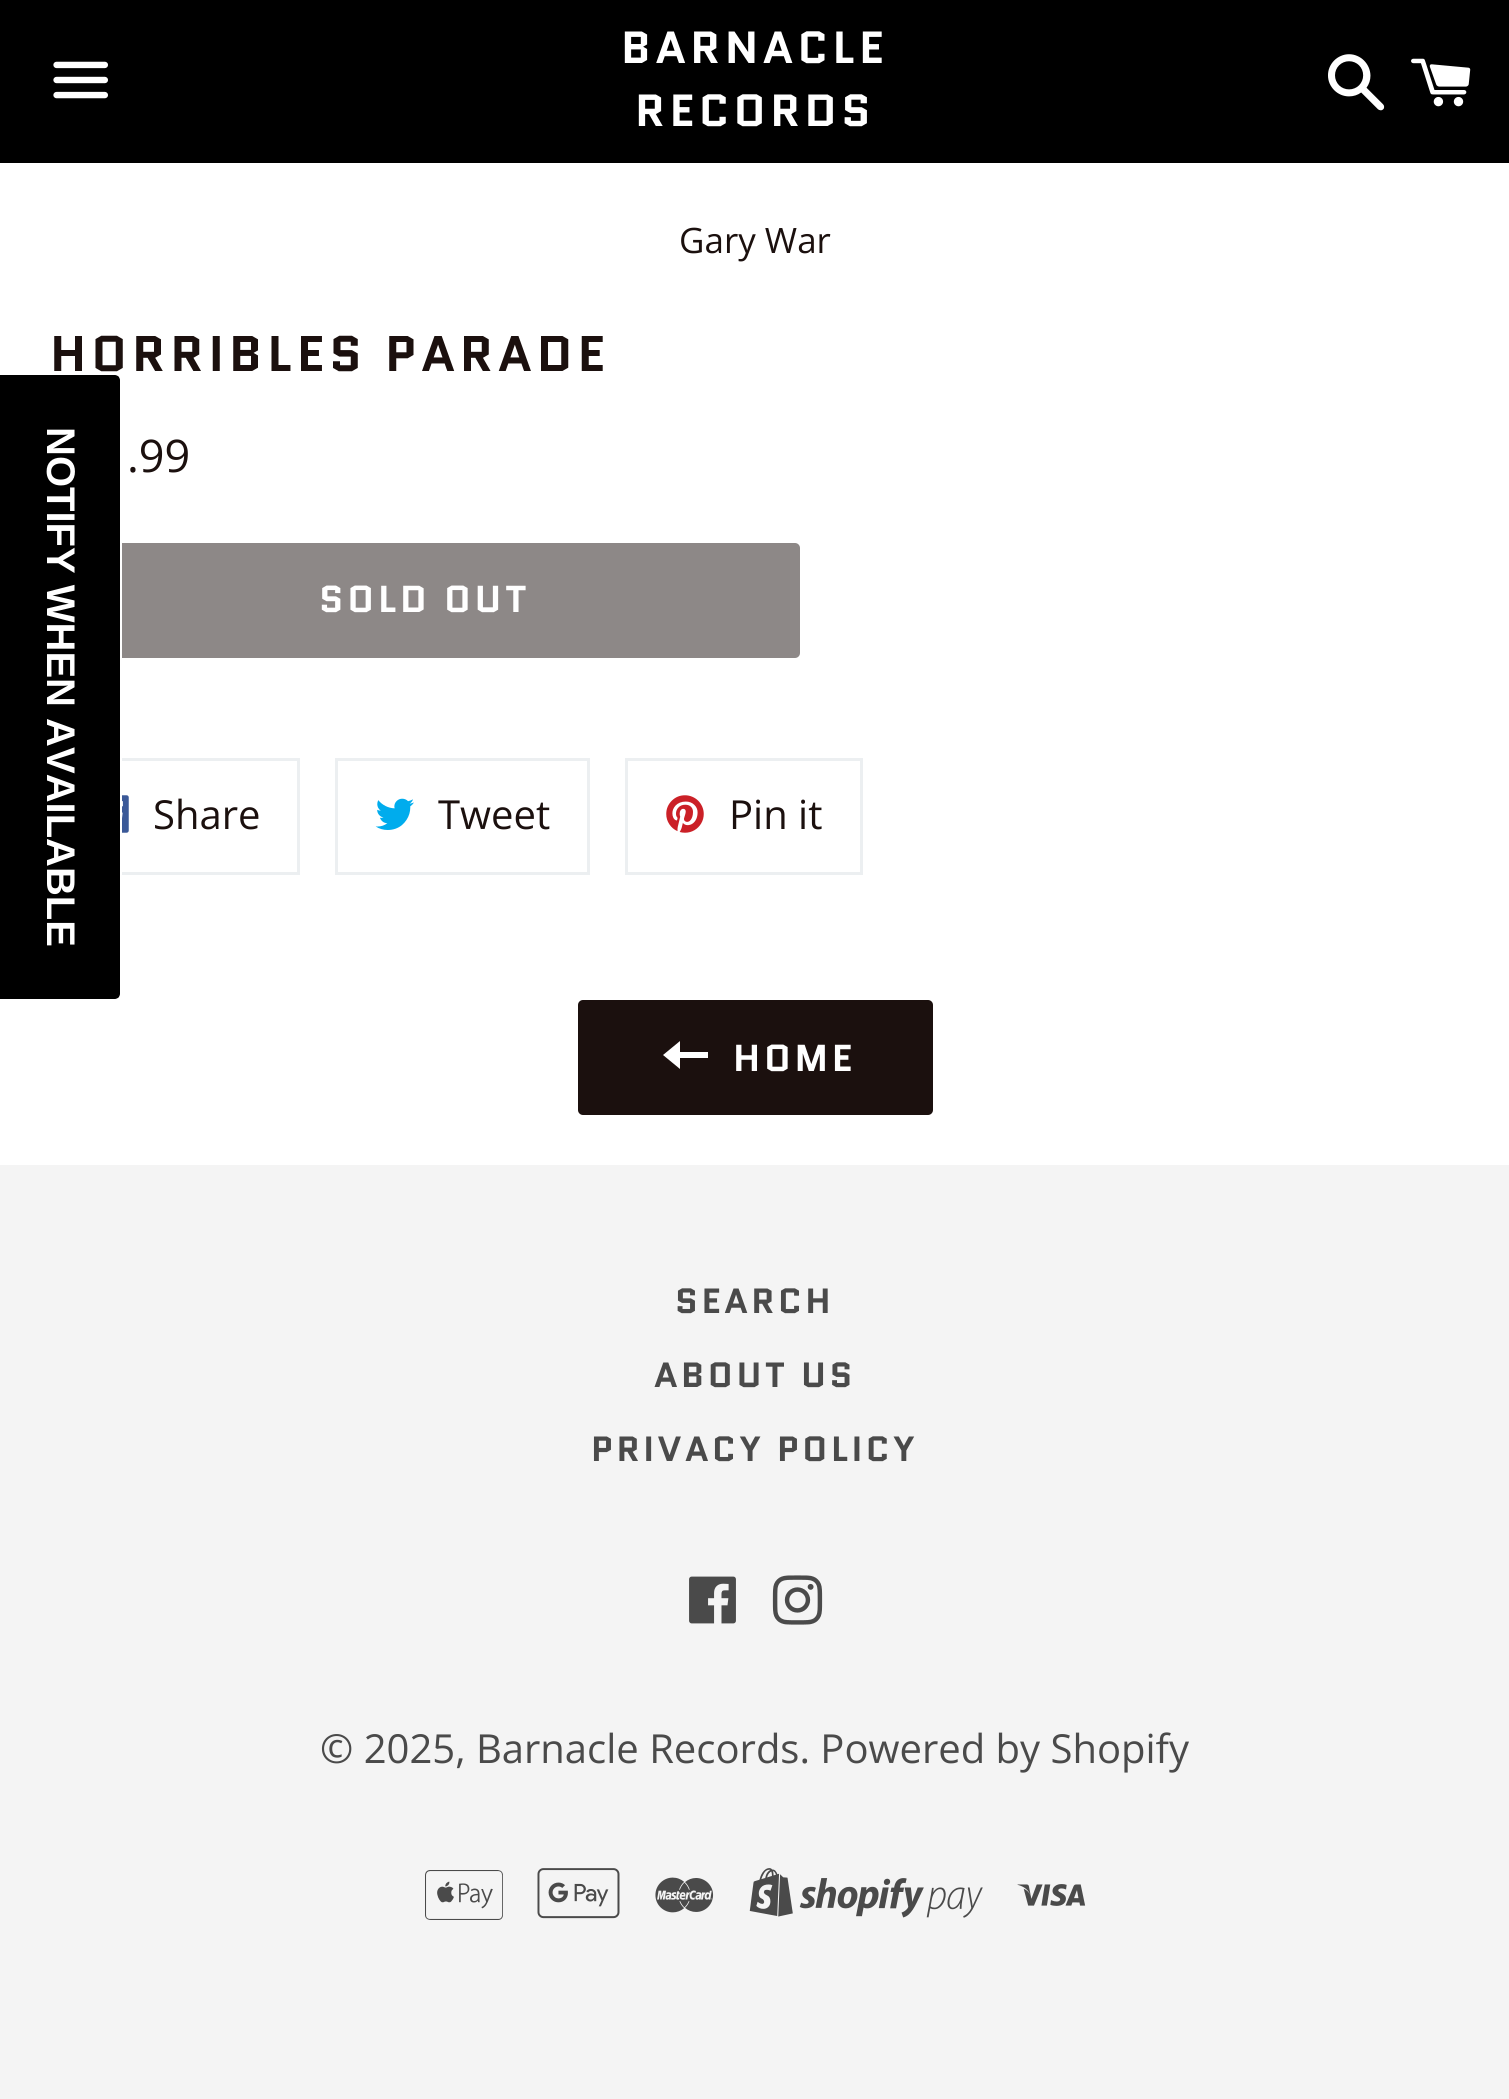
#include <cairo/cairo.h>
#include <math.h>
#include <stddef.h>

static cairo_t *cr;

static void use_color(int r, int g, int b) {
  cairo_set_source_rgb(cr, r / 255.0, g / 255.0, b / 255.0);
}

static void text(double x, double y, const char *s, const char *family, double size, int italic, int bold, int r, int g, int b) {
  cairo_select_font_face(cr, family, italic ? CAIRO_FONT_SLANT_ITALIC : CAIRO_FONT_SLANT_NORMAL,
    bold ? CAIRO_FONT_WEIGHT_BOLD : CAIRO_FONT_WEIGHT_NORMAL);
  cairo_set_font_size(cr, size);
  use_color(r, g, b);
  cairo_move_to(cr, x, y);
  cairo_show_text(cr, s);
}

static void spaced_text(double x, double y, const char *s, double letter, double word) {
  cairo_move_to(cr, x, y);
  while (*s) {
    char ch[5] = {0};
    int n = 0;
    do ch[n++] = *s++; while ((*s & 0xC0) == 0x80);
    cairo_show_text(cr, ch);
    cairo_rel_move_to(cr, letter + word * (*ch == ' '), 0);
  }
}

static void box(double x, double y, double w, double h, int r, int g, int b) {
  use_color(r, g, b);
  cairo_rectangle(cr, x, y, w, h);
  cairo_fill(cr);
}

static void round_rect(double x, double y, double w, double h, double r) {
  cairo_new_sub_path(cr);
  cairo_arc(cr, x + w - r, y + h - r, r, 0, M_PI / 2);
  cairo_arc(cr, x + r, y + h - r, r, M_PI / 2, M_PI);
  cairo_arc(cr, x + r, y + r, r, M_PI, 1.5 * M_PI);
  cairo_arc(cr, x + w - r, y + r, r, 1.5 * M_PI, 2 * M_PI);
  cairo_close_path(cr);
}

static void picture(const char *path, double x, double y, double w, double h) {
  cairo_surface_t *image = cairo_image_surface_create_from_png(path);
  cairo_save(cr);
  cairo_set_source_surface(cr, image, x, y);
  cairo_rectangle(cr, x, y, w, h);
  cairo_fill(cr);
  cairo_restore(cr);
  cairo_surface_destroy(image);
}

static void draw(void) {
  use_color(255, 255, 255);
  cairo_paint(cr);
  box(0, 0, 1509, 163, 0, 0, 0);
  picture("img_01.png", 53, 61, 55, 38);
  picture("img_02.png", 1328, 54, 57, 57);
  picture("img_03.png", 1411, 58, 60, 49);
  use_color(141, 136, 135);
  round_rect(50, 543, 750, 115, 5);
  cairo_fill(cr);
  cairo_rectangle(cr, 51.5, 759.5, 247, 114);
  use_color(236, 239, 241);
  cairo_set_line_width(cr, 3);
  cairo_stroke(cr);
  picture("img_04.png", 122, 795, 7, 38);
  cairo_rectangle(cr, 336.5, 759.5, 252, 114);
  cairo_stroke(cr);
  picture("img_05.png", 375, 798, 39, 32);
  cairo_rectangle(cr, 626.5, 759.5, 235, 114);
  cairo_stroke(cr);
  picture("img_06.png", 666, 795, 38, 38);
  use_color(27, 16, 14);
  round_rect(578, 1000, 355, 115, 5);
  cairo_fill(cr);
  use_color(255, 255, 255);
  cairo_new_path(cr);
  cairo_move_to(cr, 680, 1052);
  cairo_line_to(cr, 680, 1041);
  cairo_line_to(cr, 663, 1055);
  cairo_line_to(cr, 680, 1069);
  cairo_line_to(cr, 680, 1058);
  cairo_line_to(cr, 708, 1058);
  cairo_line_to(cr, 708, 1052);
  cairo_close_path(cr);
  cairo_fill(cr);
  use_color(0, 0, 0);
  cairo_new_path(cr);
  cairo_move_to(cr, 120, 380);
  cairo_line_to(cr, 120, 994);
  cairo_curve_to(cr, 120, 997, 118, 999, 115, 999);
  cairo_line_to(cr, 0, 999);
  cairo_line_to(cr, 0, 375);
  cairo_line_to(cr, 115, 375);
  cairo_curve_to(cr, 118, 375, 120, 377, 120, 380);
  cairo_close_path(cr);
  cairo_fill(cr);
  use_color(255, 255, 255);
  cairo_set_fill_rule(cr, CAIRO_FILL_RULE_EVEN_ODD);
  cairo_new_path(cr);
  cairo_move_to(cr, 122, 380);
  cairo_line_to(cr, 122, 994);
  cairo_curve_to(cr, 122, 998, 119, 1001, 115, 1001);
  cairo_line_to(cr, 0, 1001);
  cairo_line_to(cr, 0, 372);
  cairo_line_to(cr, 115, 372);
  cairo_curve_to(cr, 119, 372, 122, 376, 122, 380);
  cairo_close_path(cr);
  cairo_move_to(cr, 120, 380);
  cairo_line_to(cr, 120, 994);
  cairo_curve_to(cr, 120, 997, 118, 999, 115, 999);
  cairo_line_to(cr, 0, 999);
  cairo_line_to(cr, 0, 375);
  cairo_line_to(cr, 115, 375);
  cairo_curve_to(cr, 118, 375, 120, 377, 120, 380);
  cairo_close_path(cr);
  cairo_fill(cr);
  box(0, 1165, 1509, 934, 244, 244, 244);
  picture("img_07.png", 689, 1576, 47, 48);
  picture("img_08.png", 772, 1575, 51, 50);
  picture("img_09.png", 425, 1870, 78, 50);
  picture("img_10.png", 537, 1868, 83, 51);
  picture("img_11.png", 655, 1877, 59, 36);
  picture("img_12.png", 749, 1868, 234, 50);
  picture("img_13.png", 1017, 1884, 69, 22);
  cairo_select_font_face(cr, "Quantico", CAIRO_FONT_SLANT_NORMAL, CAIRO_FONT_WEIGHT_BOLD);
  cairo_set_font_size(cr, 45);
  use_color(255, 255, 255);
  spaced_text(621, 63, "BARNACLE", 4.5, 0);
  spaced_text(635, 126, "RECORDS", 4.5, 0);
  text(679, 253, "Gary War", "Open Sans", 35, 0, 0, 27, 16, 14);
  cairo_select_font_face(cr, "Quantico", CAIRO_FONT_SLANT_NORMAL, CAIRO_FONT_WEIGHT_BOLD);
  cairo_set_font_size(cr, 50);
  spaced_text(50, 371, "HORRIBLES PARADE", 5, 0);
  text(127, 472, ".99", "Open Sans", 45, 0, 0, 27, 16, 14);
  cairo_select_font_face(cr, "Quantico", CAIRO_FONT_SLANT_NORMAL, CAIRO_FONT_WEIGHT_BOLD);
  cairo_set_font_size(cr, 37.5);
  use_color(255, 255, 255);
  spaced_text(319, 612, "SOLD OUT", 3.75, 0);
  text(153, 829, "Share", "Open Sans", 40, 0, 0, 27, 16, 14);
  text(438, 829, "Tweet", "Open Sans", 40, 0, 0, 27, 16, 14);
  text(729, 829, "Pin it", "Open Sans", 40, 0, 0, 27, 16, 14);
  cairo_select_font_face(cr, "Quantico", CAIRO_FONT_SLANT_NORMAL, CAIRO_FONT_WEIGHT_BOLD);
  cairo_set_font_size(cr, 37.5);
  use_color(255, 255, 255);
  spaced_text(733, 1071, "HOME", 3.75, 0);
  cairo_save(cr);
  cairo_translate(cr, 47, 427);
  cairo_rotate(cr, 90 * M_PI / 180);
  text(0, 0, "NOTIFY WHEN AVAILABLE", "Liberation Sans", 40, 0, 1, 255, 255, 255);
  cairo_restore(cr);
  cairo_select_font_face(cr, "Quantico", CAIRO_FONT_SLANT_NORMAL, CAIRO_FONT_WEIGHT_BOLD);
  cairo_set_font_size(cr, 35);
  use_color(74, 74, 74);
  spaced_text(675, 1313, "SEARCH", 3.5, 0);
  spaced_text(654, 1387, "ABOUT US", 3.5, 0);
  spaced_text(591, 1461, "PRIVACY POLICY", 3.5, 0);
  text(320, 1763, "© 2025, Barnacle Records. Powered by Shopify", "Open Sans", 40, 0, 0, 74, 74, 74);
}

int main(void) {
  cairo_surface_t *surface = cairo_image_surface_create(CAIRO_FORMAT_RGB24, 1509, 2099);
  cr = cairo_create(surface);
  cairo_font_options_t *options = cairo_font_options_create();
  cairo_font_options_set_hint_metrics(options, CAIRO_HINT_METRICS_OFF);
  cairo_font_options_set_hint_style(options, CAIRO_HINT_STYLE_NONE);
  cairo_set_font_options(cr, options);
  cairo_set_miter_limit(cr, 4);
  draw();
  cairo_surface_write_to_png(surface, "out.png");
  cairo_font_options_destroy(options);
  cairo_destroy(cr);
  cairo_surface_destroy(surface);
  return 0;
}
